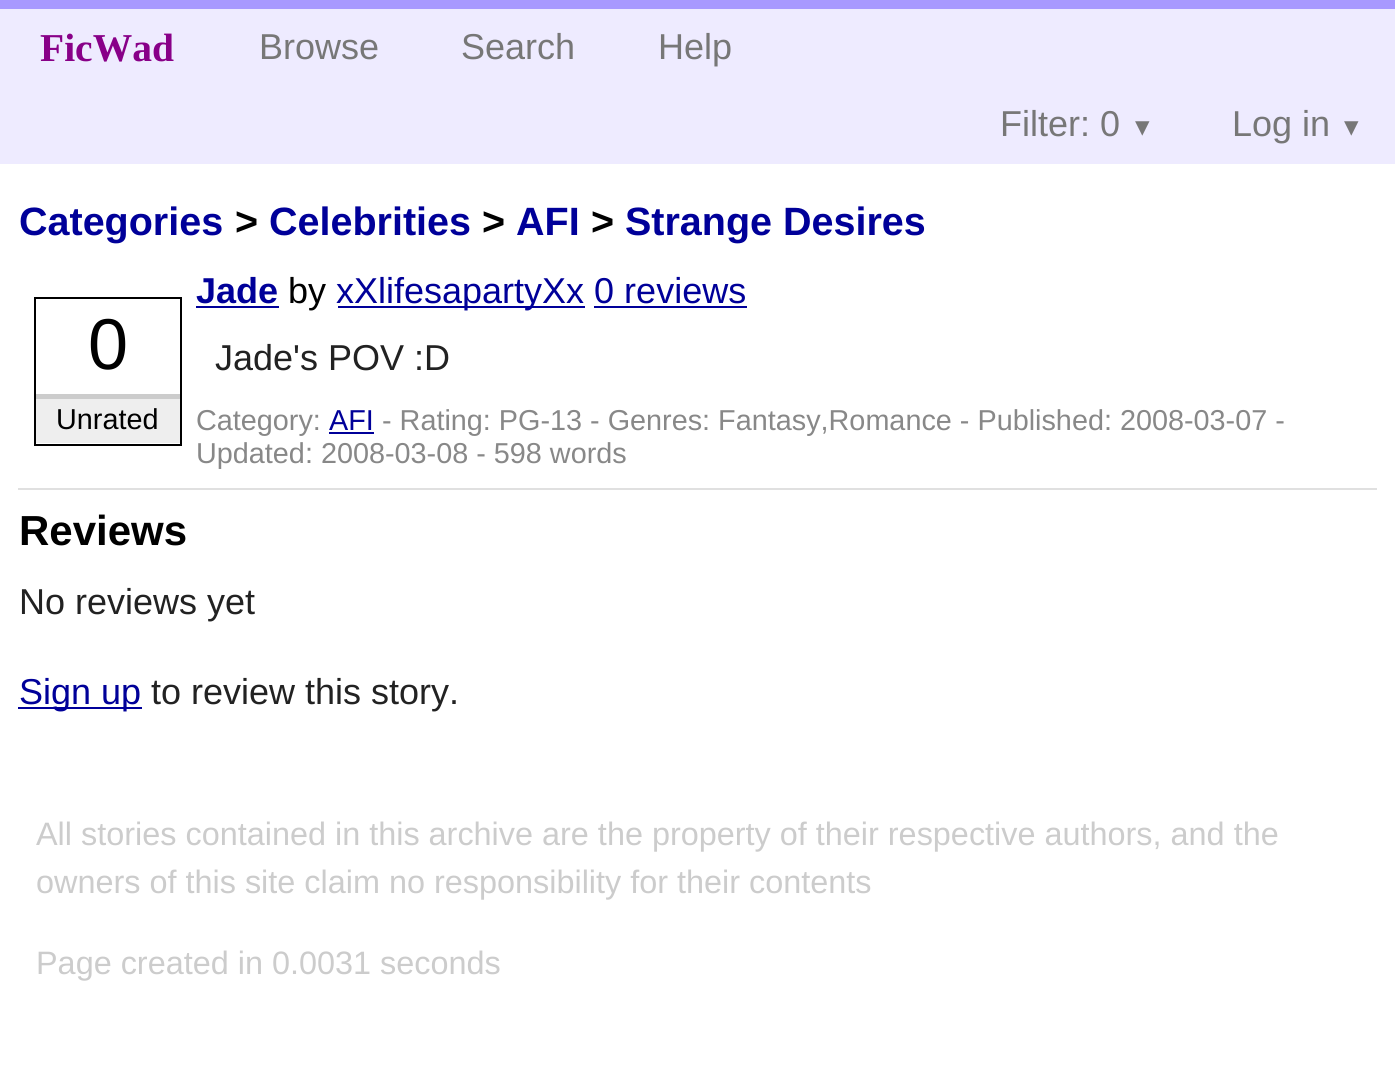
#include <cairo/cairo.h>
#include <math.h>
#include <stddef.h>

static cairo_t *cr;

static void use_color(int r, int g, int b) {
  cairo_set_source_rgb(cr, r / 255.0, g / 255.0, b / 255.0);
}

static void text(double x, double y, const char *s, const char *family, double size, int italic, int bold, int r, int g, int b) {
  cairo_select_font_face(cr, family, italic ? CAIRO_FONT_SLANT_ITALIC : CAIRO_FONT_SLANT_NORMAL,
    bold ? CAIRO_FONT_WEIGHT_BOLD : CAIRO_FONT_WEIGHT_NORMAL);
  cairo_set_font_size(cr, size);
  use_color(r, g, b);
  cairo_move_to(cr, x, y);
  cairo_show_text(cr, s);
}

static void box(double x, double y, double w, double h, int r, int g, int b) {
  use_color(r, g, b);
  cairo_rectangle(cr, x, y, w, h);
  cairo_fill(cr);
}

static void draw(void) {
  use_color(255, 255, 255);
  cairo_paint(cr);
  box(0, 9, 1395, 155, 238, 235, 255);
  box(0, 0, 1395, 9, 168, 153, 255);
  box(18, 488, 1359, 2, 224, 224, 224);
  box(196, 306, 83, 2, 0, 0, 153);
  box(338, 306, 247, 2, 0, 0, 153);
  box(594, 306, 153, 2, 0, 0, 153);
  cairo_rectangle(cr, 35, 298, 146, 147);
  use_color(0, 0, 0);
  cairo_stroke(cr);
  box(36, 399, 144, 44, 238, 238, 238);
  box(36, 394, 144, 5, 204, 204, 204);
  box(329, 432, 45, 2, 0, 0, 153);
  box(18, 707, 124, 2, 0, 0, 153);
  text(40, 61, "FicWad", "Liberation Serif", 39.5, 0, 1, 136, 0, 136);
  text(259, 59, "Browse", "Liberation Sans", 36, 0, 0, 119, 119, 119);
  text(461, 59, "Search", "Liberation Sans", 36, 0, 0, 119, 119, 119);
  text(658, 59, "Help", "Liberation Sans", 36, 0, 0, 119, 119, 119);
  text(1000, 136, "Filter: 0", "Liberation Sans", 36, 0, 0, 119, 119, 119);
  text(1135, 136, "▾", "DejaVu Sans", 29, 0, 0, 119, 119, 119);
  text(1232, 136, "Log in", "Liberation Sans", 36, 0, 0, 119, 119, 119);
  text(1344, 136, "▾", "DejaVu Sans", 29, 0, 0, 119, 119, 119);
  text(19, 235, "Categories", "Liberation Sans", 39.5, 0, 1, 0, 0, 153);
  text(235, 235, ">", "Liberation Sans", 39.5, 0, 1, 0, 0, 0);
  text(269, 235, "Celebrities", "Liberation Sans", 39.5, 0, 1, 0, 0, 153);
  text(482, 235, ">", "Liberation Sans", 39.5, 0, 1, 0, 0, 0);
  text(516, 235, "AFI", "Liberation Sans", 39.5, 0, 1, 0, 0, 153);
  text(591, 235, ">", "Liberation Sans", 39.5, 0, 1, 0, 0, 0);
  text(625, 235, "Strange Desires", "Liberation Sans", 39.5, 0, 1, 0, 0, 153);
  text(196, 303, "Jade", "Liberation Sans", 36, 0, 1, 0, 0, 153);
  text(288, 303, "by", "Liberation Sans", 36, 0, 0, 0, 0, 0);
  text(336, 303, "xXlifesapartyXx 0 reviews", "Liberation Sans", 36, 0, 0, 0, 0, 153);
  text(88, 369, "0", "Liberation Sans", 72, 0, 0, 0, 0, 0);
  text(56, 429, "Unrated", "Liberation Sans", 28.8, 0, 0, 0, 0, 0);
  text(215, 370, "Jade's POV :D", "Liberation Sans", 36, 0, 0, 34, 34, 34);
  text(196, 430, "Category:", "Liberation Sans", 28.8, 0, 0, 136, 136, 136);
  text(329, 430, "AFI", "Liberation Sans", 28.8, 0, 0, 0, 0, 153);
  text(382, 430, "- Rating: PG-13 - Genres: Fantasy,Romance - Published: 2008-03-07 -", "Liberation Sans", 28.8, 0, 0, 136, 136, 136);
  text(196, 463, "Updated: 2008-03-08 - 598 words", "Liberation Sans", 28.8, 0, 0, 136, 136, 136);
  text(19, 545, "Reviews", "Liberation Sans", 42, 0, 1, 0, 0, 0);
  text(19, 614, "No reviews yet", "Liberation Sans", 36, 0, 0, 34, 34, 34);
  text(19, 704, "Sign up", "Liberation Sans", 36, 0, 0, 0, 0, 153);
  text(151, 704, "to review this story.", "Liberation Sans", 36, 0, 0, 34, 34, 34);
  text(36, 845, "All stories contained in this archive are the property of their respective authors, and the", "Liberation Sans", 32.4, 0, 0, 204, 204, 204);
  text(36, 893, "owners of this site claim no responsibility for their contents", "Liberation Sans", 32.4, 0, 0, 204, 204, 204);
  text(36, 974, "Page created in 0.0031 seconds", "Liberation Sans", 32.4, 0, 0, 204, 204, 204);
}

int main(void) {
  cairo_surface_t *surface = cairo_image_surface_create(CAIRO_FORMAT_RGB24, 1395, 1092);
  cr = cairo_create(surface);
  cairo_font_options_t *options = cairo_font_options_create();
  cairo_font_options_set_hint_metrics(options, CAIRO_HINT_METRICS_OFF);
  cairo_font_options_set_hint_style(options, CAIRO_HINT_STYLE_NONE);
  cairo_set_font_options(cr, options);
  cairo_set_miter_limit(cr, 4);
  draw();
  cairo_surface_write_to_png(surface, "out.png");
  cairo_font_options_destroy(options);
  cairo_destroy(cr);
  cairo_surface_destroy(surface);
  return 0;
}
